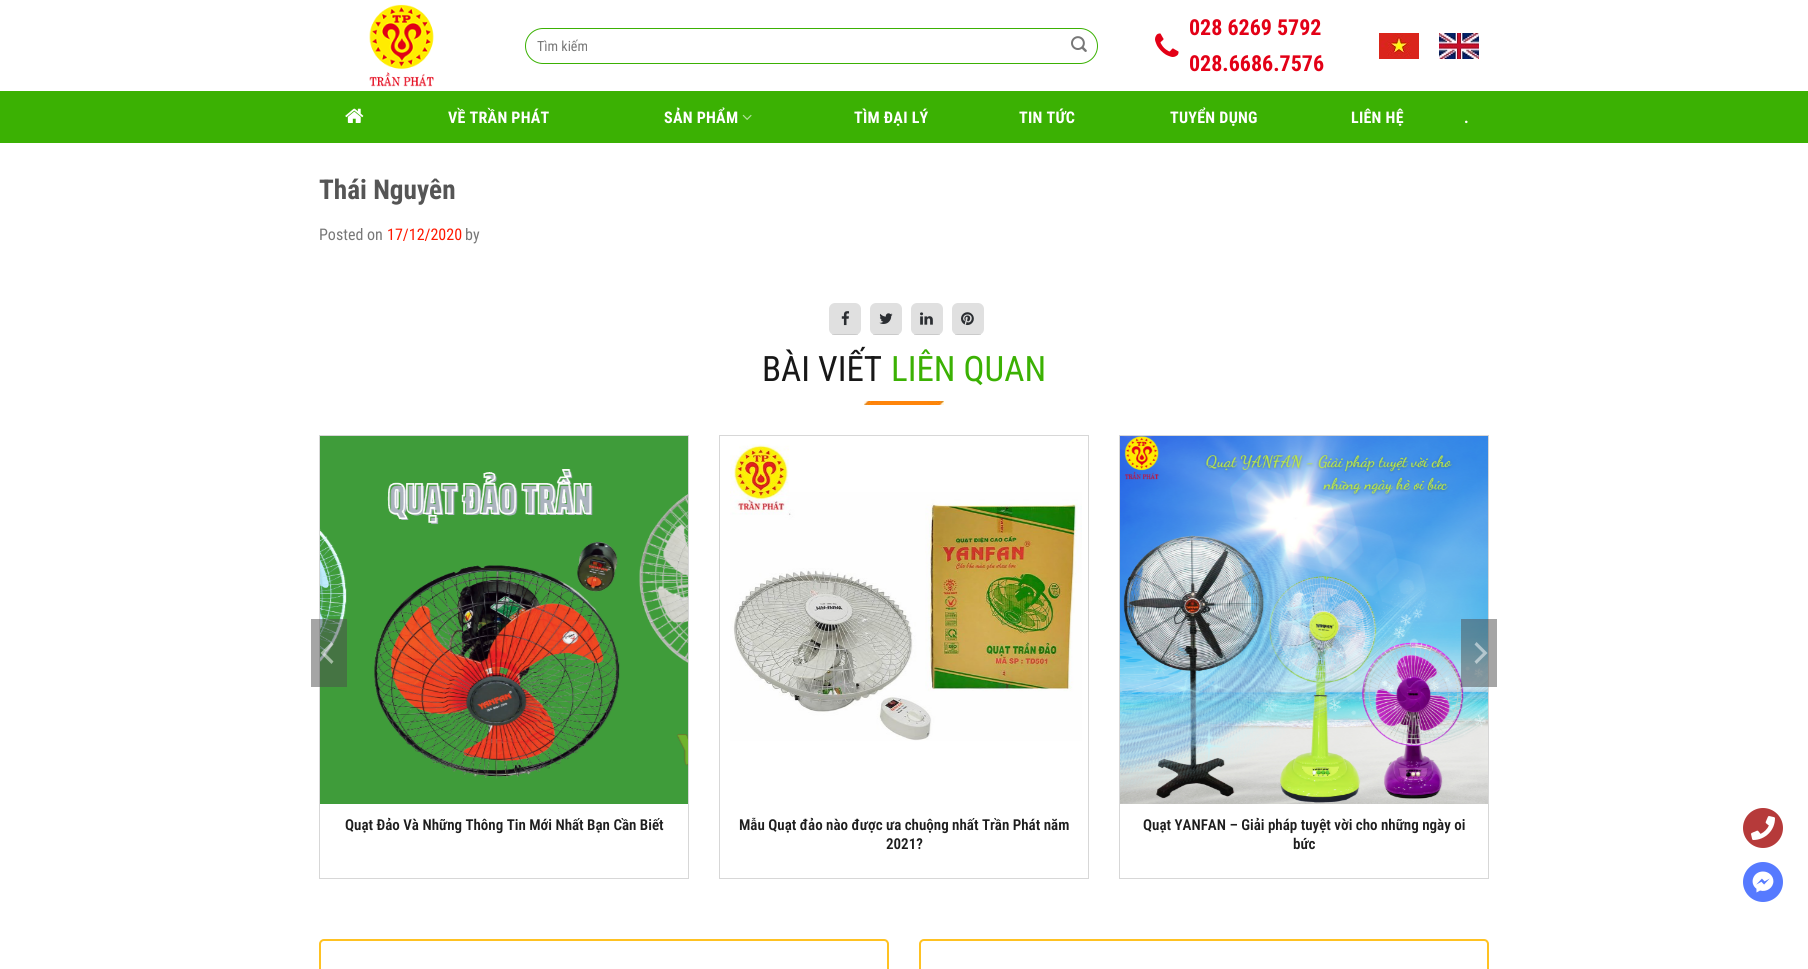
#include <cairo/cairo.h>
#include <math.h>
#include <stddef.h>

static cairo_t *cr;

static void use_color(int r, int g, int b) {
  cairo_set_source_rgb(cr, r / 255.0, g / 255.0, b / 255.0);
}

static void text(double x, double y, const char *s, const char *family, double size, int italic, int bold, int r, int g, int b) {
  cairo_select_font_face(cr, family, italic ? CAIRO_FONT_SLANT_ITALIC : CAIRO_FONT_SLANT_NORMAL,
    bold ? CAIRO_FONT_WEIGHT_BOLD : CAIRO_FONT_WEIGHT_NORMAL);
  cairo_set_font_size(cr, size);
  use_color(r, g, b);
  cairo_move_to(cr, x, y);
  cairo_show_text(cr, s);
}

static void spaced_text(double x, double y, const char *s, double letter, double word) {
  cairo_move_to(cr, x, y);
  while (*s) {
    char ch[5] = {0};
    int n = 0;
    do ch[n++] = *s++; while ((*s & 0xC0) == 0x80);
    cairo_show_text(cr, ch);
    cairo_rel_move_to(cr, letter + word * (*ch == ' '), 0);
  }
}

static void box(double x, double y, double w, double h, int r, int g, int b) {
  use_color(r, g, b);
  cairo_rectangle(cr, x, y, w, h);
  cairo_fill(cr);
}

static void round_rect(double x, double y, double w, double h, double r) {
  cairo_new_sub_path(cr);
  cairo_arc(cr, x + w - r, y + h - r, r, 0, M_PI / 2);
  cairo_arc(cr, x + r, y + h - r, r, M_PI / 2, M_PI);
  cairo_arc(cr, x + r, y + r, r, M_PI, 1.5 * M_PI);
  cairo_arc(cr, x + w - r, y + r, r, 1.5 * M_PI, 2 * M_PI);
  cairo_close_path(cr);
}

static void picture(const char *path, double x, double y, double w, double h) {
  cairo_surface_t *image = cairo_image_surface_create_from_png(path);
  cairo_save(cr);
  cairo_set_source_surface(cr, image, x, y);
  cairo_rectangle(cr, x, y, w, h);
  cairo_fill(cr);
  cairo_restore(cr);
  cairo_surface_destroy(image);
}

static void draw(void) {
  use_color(255, 255, 255);
  cairo_paint(cr);
  picture("img_01.png", 369, 4, 65, 83);
  round_rect(525.5, 28.5, 572, 35, 17.5);
  use_color(59, 177, 3);
  cairo_set_line_width(cr, 1);
  cairo_stroke(cr);
  picture("img_02.png", 1071, 36, 16, 16);
  picture("img_03.png", 1155, 33, 24, 24);
  picture("img_04.png", 1379, 33, 40, 26);
  picture("img_05.png", 1439, 33, 40, 26);
  box(0, 91, 1808, 52, 59, 177, 3);
  picture("img_06.png", 345, 108, 19, 15);
  picture("img_07.png", 742, 114, 10, 6);
  use_color(224, 224, 224);
  round_rect(829, 303, 32, 32, 6);
  cairo_fill(cr);
  cairo_set_source_rgba(cr, 0, 0, 0, 0.1);
  cairo_rectangle(cr, 832, 334, 26, 1);
  cairo_fill(cr);
  picture("img_08.png", 841, 311, 9, 15);
  use_color(224, 224, 224);
  round_rect(870, 303, 32, 32, 6);
  cairo_fill(cr);
  cairo_set_source_rgba(cr, 0, 0, 0, 0.1);
  cairo_rectangle(cr, 873, 334, 26, 1);
  cairo_fill(cr);
  picture("img_09.png", 879, 313, 14, 11);
  use_color(224, 224, 224);
  round_rect(911, 303, 32, 32, 6);
  cairo_fill(cr);
  cairo_set_source_rgba(cr, 0, 0, 0, 0.1);
  cairo_rectangle(cr, 914, 334, 26, 1);
  cairo_fill(cr);
  picture("img_10.png", 920, 312, 13, 13);
  use_color(224, 224, 224);
  round_rect(952, 303, 32, 32, 6);
  cairo_fill(cr);
  cairo_set_source_rgba(cr, 0, 0, 0, 0.1);
  cairo_rectangle(cr, 955, 334, 26, 1);
  cairo_fill(cr);
  picture("img_11.png", 961, 312, 13, 14);
  picture("img_12.png", 864, 401, 80, 4);
  cairo_rectangle(cr, 319.5, 435.5, 369, 443);
  use_color(215, 215, 215);
  cairo_stroke(cr);
  picture("img_13.png", 320, 436, 368, 368);
  cairo_set_source_rgba(cr, 0.298, 0.298, 0.298, 0.5);
  cairo_rectangle(cr, 311, 619, 36, 68);
  cairo_fill(cr);
  cairo_set_source_rgba(cr, 1, 1, 1, 0.5);
  cairo_new_path(cr);
  cairo_move_to(cr, 320.5, 653);
  cairo_line_to(cr, 331.5, 664);
  cairo_line_to(cr, 333.5, 661.5);
  cairo_line_to(cr, 325, 653);
  cairo_line_to(cr, 333.5, 644.5);
  cairo_line_to(cr, 331.5, 642);
  cairo_close_path(cr);
  cairo_fill(cr);
  cairo_rectangle(cr, 1119.5, 435.5, 369, 443);
  use_color(215, 215, 215);
  cairo_stroke(cr);
  picture("img_15.png", 1120, 436, 368, 368);
  cairo_set_source_rgba(cr, 0.298, 0.298, 0.298, 0.5);
  cairo_rectangle(cr, 1461, 619, 36, 68);
  cairo_fill(cr);
  cairo_set_source_rgba(cr, 1, 1, 1, 0.5);
  cairo_new_path(cr);
  cairo_move_to(cr, 1487.5, 653);
  cairo_line_to(cr, 1476.5, 642);
  cairo_line_to(cr, 1474.5, 644.5);
  cairo_line_to(cr, 1483, 653);
  cairo_line_to(cr, 1474.5, 661.5);
  cairo_line_to(cr, 1476.5, 664);
  cairo_close_path(cr);
  cairo_fill(cr);
  cairo_rectangle(cr, 719.5, 435.5, 369, 443);
  use_color(215, 215, 215);
  cairo_stroke(cr);
  picture("img_14.png", 730, 444, 352, 297);
  use_color(182, 58, 58);
  cairo_arc(cr, 1763, 828, 20, 0, 2 * M_PI);
  cairo_fill(cr);
  picture("img_16.png", 1751, 816, 24, 24);
  use_color(86, 122, 255);
  cairo_arc(cr, 1763, 882, 20, 0, 2 * M_PI);
  cairo_fill(cr);
  picture("img_17.png", 1752, 871, 22, 22);
  round_rect(320, 940, 568, 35, 4);
  use_color(255, 194, 34);
  cairo_set_line_width(cr, 2);
  cairo_stroke(cr);
  round_rect(920, 940, 568, 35, 4);
  cairo_stroke(cr);
  text(537, 51, "Tìm kiếm", "Roboto Condensed", 14, 0, 0, 119, 119, 119);
  text(1189, 35, "028 6269 5792", "Roboto Condensed", 22, 0, 1, 227, 0, 22);
  text(1189, 71, "028.6686.7576", "Roboto Condensed", 22, 0, 1, 227, 0, 22);
  cairo_set_font_size(cr, 16);
  use_color(255, 255, 255);
  spaced_text(448, 123, "VỀ TRẦN PHÁT", 0.25, 0);
  spaced_text(664, 123, "SẢN PHẨM", 0.25, 0);
  spaced_text(854, 123, "TÌM ĐẠI LÝ", 0.25, 0);
  spaced_text(1019, 123, "TIN TỨC", 0.25, 0);
  spaced_text(1170, 123, "TUYỂN DỤNG", 0.25, 0);
  spaced_text(1351, 123, "LIÊN HỆ", 0.25, 0);
  spaced_text(1464, 123, ".", 0.25, 0);
  text(319, 199, "Thái Nguyên", "Roboto Condensed", 27.25, 0, 1, 85, 85, 85);
  text(319, 240, "Posted on", "Roboto Condensed", 16, 0, 0, 119, 119, 119);
  text(387, 240, "17/12/2020", "Roboto Condensed", 16, 0, 0, 255, 24, 0);
  text(465, 240, "by", "Roboto Condensed", 16, 0, 0, 119, 119, 119);
  text(762, 381, "BÀI VIẾT", "Roboto Condensed", 35, 0, 0, 23, 23, 23);
  text(891, 381, "LIÊN QUAN", "Roboto Condensed", 35, 0, 0, 59, 177, 3);
  text(345, 830, "Quạt Đảo Và Những Thông Tin Mới Nhất Bạn Cần Biết", "Roboto Condensed SemiBold", 15, 0, 0, 30, 30, 30);
  text(739, 830, "Mẫu Quạt đảo nào được ưa chuộng nhất Trần Phát năm", "Roboto Condensed SemiBold", 15, 0, 0, 30, 30, 30);
  text(886, 849, "2021?", "Roboto Condensed SemiBold", 15, 0, 0, 30, 30, 30);
  text(1143, 830, "Quạt YANFAN – Giải pháp tuyệt vời cho những ngày oi", "Roboto Condensed SemiBold", 15, 0, 0, 30, 30, 30);
  text(1293, 849, "bức", "Roboto Condensed SemiBold", 15, 0, 0, 30, 30, 30);
}

int main(void) {
  cairo_surface_t *surface = cairo_image_surface_create(CAIRO_FORMAT_RGB24, 1808, 969);
  cr = cairo_create(surface);
  cairo_font_options_t *options = cairo_font_options_create();
  cairo_font_options_set_hint_metrics(options, CAIRO_HINT_METRICS_OFF);
  cairo_font_options_set_hint_style(options, CAIRO_HINT_STYLE_NONE);
  cairo_set_font_options(cr, options);
  cairo_set_miter_limit(cr, 4);
  draw();
  cairo_surface_write_to_png(surface, "out.png");
  cairo_font_options_destroy(options);
  cairo_destroy(cr);
  cairo_surface_destroy(surface);
  return 0;
}
